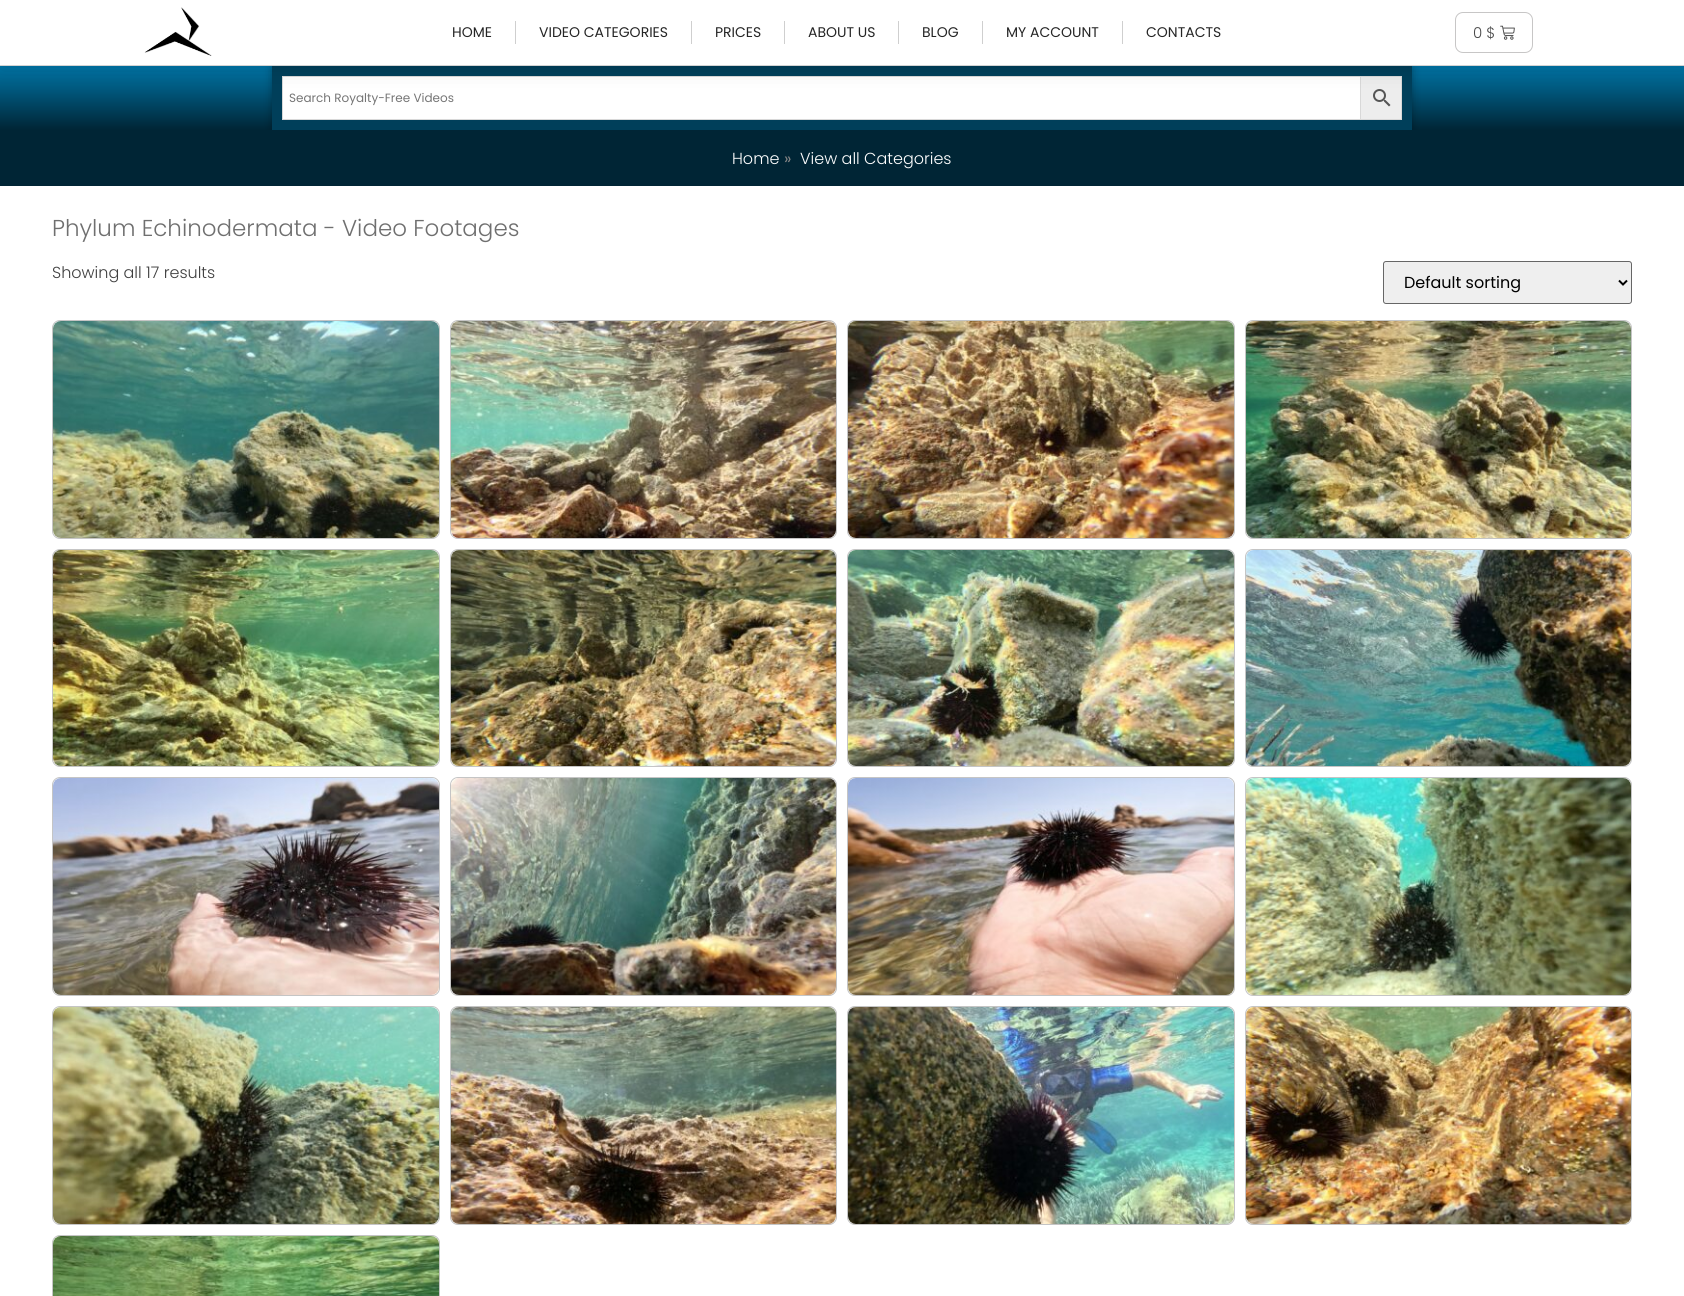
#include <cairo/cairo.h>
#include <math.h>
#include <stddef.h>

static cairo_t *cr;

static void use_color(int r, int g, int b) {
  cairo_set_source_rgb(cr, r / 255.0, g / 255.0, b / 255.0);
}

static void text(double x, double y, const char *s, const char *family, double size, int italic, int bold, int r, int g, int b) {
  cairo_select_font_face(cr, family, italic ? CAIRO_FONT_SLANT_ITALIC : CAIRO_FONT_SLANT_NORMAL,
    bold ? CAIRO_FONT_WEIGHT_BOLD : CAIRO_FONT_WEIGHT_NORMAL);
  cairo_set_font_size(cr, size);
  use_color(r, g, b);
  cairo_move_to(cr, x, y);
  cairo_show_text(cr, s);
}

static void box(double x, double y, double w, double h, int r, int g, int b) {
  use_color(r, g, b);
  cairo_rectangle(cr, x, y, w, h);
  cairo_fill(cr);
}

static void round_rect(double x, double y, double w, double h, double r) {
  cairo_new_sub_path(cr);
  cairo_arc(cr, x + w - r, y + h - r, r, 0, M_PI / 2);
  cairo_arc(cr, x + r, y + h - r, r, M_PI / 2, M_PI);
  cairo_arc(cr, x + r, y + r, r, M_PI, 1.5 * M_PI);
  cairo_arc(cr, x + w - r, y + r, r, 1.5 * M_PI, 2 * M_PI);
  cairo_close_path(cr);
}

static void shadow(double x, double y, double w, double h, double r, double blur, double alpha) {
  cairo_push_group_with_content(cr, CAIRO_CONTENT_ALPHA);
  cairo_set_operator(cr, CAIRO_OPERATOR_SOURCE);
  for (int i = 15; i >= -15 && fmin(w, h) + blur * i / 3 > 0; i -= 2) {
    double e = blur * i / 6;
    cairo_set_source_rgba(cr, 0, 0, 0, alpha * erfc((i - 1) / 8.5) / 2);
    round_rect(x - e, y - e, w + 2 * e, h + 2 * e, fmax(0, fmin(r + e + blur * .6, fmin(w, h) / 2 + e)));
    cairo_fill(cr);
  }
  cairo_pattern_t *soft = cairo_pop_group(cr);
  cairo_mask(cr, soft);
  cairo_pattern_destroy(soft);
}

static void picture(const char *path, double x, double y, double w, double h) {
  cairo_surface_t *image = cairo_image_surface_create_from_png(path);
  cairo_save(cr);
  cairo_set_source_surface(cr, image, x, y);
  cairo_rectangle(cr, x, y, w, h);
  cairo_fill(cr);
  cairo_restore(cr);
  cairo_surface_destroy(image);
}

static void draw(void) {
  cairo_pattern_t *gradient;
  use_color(255, 255, 255);
  cairo_paint(cr);
  gradient = cairo_pattern_create_linear(842, 66, 842, 130);
  cairo_pattern_add_color_stop_rgba(gradient, 0, 0, 0.459, 0.655, 1);
  cairo_pattern_add_color_stop_rgba(gradient, 1, 0, 0.145, 0.208, 1);
  cairo_set_source(cr, gradient);
  cairo_pattern_destroy(gradient);
  cairo_rectangle(cr, 0, 66, 1684, 64);
  cairo_fill(cr);
  use_color(0, 0, 0);
  shadow(274, 68, 1136, 60, 0, 5, 0.5);
  box(272, 66, 1140, 64, 0, 63, 90);
  use_color(237, 237, 237);
  cairo_rectangle(cr, 1360.5, 76.5, 41, 43);
  cairo_fill_preserve(cr);
  use_color(216, 216, 216);
  cairo_set_line_width(cr, 1);
  cairo_stroke(cr);
  use_color(255, 255, 255);
  cairo_rectangle(cr, 282.5, 76.5, 1078, 43);
  cairo_fill_preserve(cr);
  use_color(216, 216, 216);
  cairo_stroke(cr);
  picture("img_03.png", 1373, 89, 18, 18);
  use_color(0, 0, 0);
  shadow(0, 0, 1684, 66, 0, 12, 0.15);
  box(0, 0, 1684, 65, 255, 255, 255);
  box(0, 65, 1684, 1, 211, 211, 211);
  picture("img_01.png", 144, 7, 68, 49);
  box(515, 21, 1, 23, 207, 207, 207);
  box(691, 21, 1, 23, 207, 207, 207);
  box(784, 21, 1, 23, 207, 207, 207);
  box(898, 21, 1, 23, 207, 207, 207);
  box(982, 21, 1, 23, 207, 207, 207);
  box(1122, 21, 1, 23, 207, 207, 207);
  round_rect(1455.5, 12.5, 77, 40, 7.5);
  use_color(199, 198, 198);
  cairo_stroke(cr);
  picture("img_02.png", 1500, 25, 15, 15);
  box(0, 130, 1684, 56, 0, 37, 53);
  use_color(239, 239, 239);
  round_rect(1383.5, 261.5, 248, 42, 2.5);
  cairo_fill_preserve(cr);
  use_color(102, 102, 102);
  cairo_stroke(cr);
  cairo_new_path(cr);
  cairo_move_to(cr, 1619, 280.5);
  cairo_line_to(cr, 1623, 284.5);
  cairo_line_to(cr, 1627, 280.5);
  use_color(0, 0, 0);
  cairo_set_line_width(cr, 2);
  cairo_stroke(cr);
  round_rect(52.5, 320.5, 387, 218, 7.5);
  use_color(197, 197, 197);
  cairo_set_line_width(cr, 1);
  cairo_stroke(cr);
  picture("img_04.png", 53, 321, 386, 217);
  round_rect(450.5, 320.5, 386, 218, 7.5);
  cairo_stroke(cr);
  picture("img_05.png", 451, 321, 385, 217);
  round_rect(847.5, 320.5, 387, 218, 7.5);
  cairo_stroke(cr);
  picture("img_06.png", 848, 321, 386, 217);
  round_rect(1245.5, 320.5, 386, 218, 7.5);
  cairo_stroke(cr);
  picture("img_07.png", 1246, 321, 385, 217);
  round_rect(52.5, 549.5, 387, 217, 7.5);
  cairo_stroke(cr);
  picture("img_08.png", 53, 550, 386, 216);
  round_rect(450.5, 549.5, 386, 217, 7.5);
  cairo_stroke(cr);
  picture("img_09.png", 451, 550, 385, 216);
  round_rect(847.5, 549.5, 387, 217, 7.5);
  cairo_stroke(cr);
  picture("img_10.png", 848, 550, 386, 216);
  round_rect(1245.5, 549.5, 386, 217, 7.5);
  cairo_stroke(cr);
  picture("img_11.png", 1246, 550, 385, 216);
  round_rect(52.5, 777.5, 387, 218, 7.5);
  cairo_stroke(cr);
  picture("img_12.png", 53, 778, 386, 217);
  round_rect(450.5, 777.5, 386, 218, 7.5);
  cairo_stroke(cr);
  picture("img_13.png", 451, 778, 385, 217);
  round_rect(847.5, 777.5, 387, 218, 7.5);
  cairo_stroke(cr);
  picture("img_14.png", 848, 778, 386, 217);
  round_rect(1245.5, 777.5, 386, 218, 7.5);
  cairo_stroke(cr);
  picture("img_15.png", 1246, 778, 385, 217);
  round_rect(52.5, 1006.5, 387, 218, 7.5);
  cairo_stroke(cr);
  picture("img_16.png", 53, 1007, 386, 217);
  round_rect(450.5, 1006.5, 386, 218, 7.5);
  cairo_stroke(cr);
  picture("img_17.png", 451, 1007, 385, 217);
  round_rect(847.5, 1006.5, 387, 218, 7.5);
  cairo_stroke(cr);
  picture("img_18.png", 848, 1007, 386, 217);
  round_rect(1245.5, 1006.5, 386, 218, 7.5);
  cairo_stroke(cr);
  picture("img_19.png", 1246, 1007, 385, 217);
  round_rect(52.5, 1235.5, 387, 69, 7.5);
  cairo_stroke(cr);
  picture("img_20.png", 53, 1236, 386, 60);
  text(452, 37, "HOME", "Poppins", 14, 0, 0, 37, 37, 37);
  text(539, 37, "VIDEO CATEGORIES", "Poppins", 14, 0, 0, 37, 37, 37);
  text(715, 37, "PRICES", "Poppins", 14, 0, 0, 37, 37, 37);
  text(808, 37, "ABOUT US", "Poppins", 14, 0, 0, 37, 37, 37);
  text(922, 37, "BLOG", "Poppins", 14, 0, 0, 37, 37, 37);
  text(1006, 37, "MY ACCOUNT", "Poppins", 14, 0, 0, 37, 37, 37);
  text(1146, 37, "CONTACTS", "Poppins", 14, 0, 0, 37, 37, 37);
  text(1473, 38, "0 $", "Poppins Light", 15, 0, 0, 73, 73, 73);
  text(289, 102, "Search Royalty-Free Videos", "Poppins", 12, 0, 0, 117, 117, 117);
  text(732, 164, "Home", "Poppins Light", 16, 0, 0, 255, 255, 255);
  text(784, 164, "»", "Poppins", 16, 0, 0, 134, 134, 134);
  text(800, 164, "View all Categories", "Poppins Light", 16, 0, 0, 255, 255, 255);
  text(52, 236, "Phylum Echinodermata - Video Footages", "Poppins Light", 23, 0, 0, 111, 111, 111);
  text(52, 278, "Showing all 17 results", "Poppins Light", 16, 0, 0, 63, 63, 63);
  text(1404, 288, "Default sorting", "Poppins", 16, 0, 0, 0, 0, 0);
}

int main(void) {
  cairo_surface_t *surface = cairo_image_surface_create(CAIRO_FORMAT_RGB24, 1684, 1296);
  cr = cairo_create(surface);
  cairo_font_options_t *options = cairo_font_options_create();
  cairo_font_options_set_hint_metrics(options, CAIRO_HINT_METRICS_OFF);
  cairo_font_options_set_hint_style(options, CAIRO_HINT_STYLE_NONE);
  cairo_set_font_options(cr, options);
  cairo_set_miter_limit(cr, 4);
  draw();
  cairo_surface_write_to_png(surface, "out.png");
  cairo_font_options_destroy(options);
  cairo_destroy(cr);
  cairo_surface_destroy(surface);
  return 0;
}
